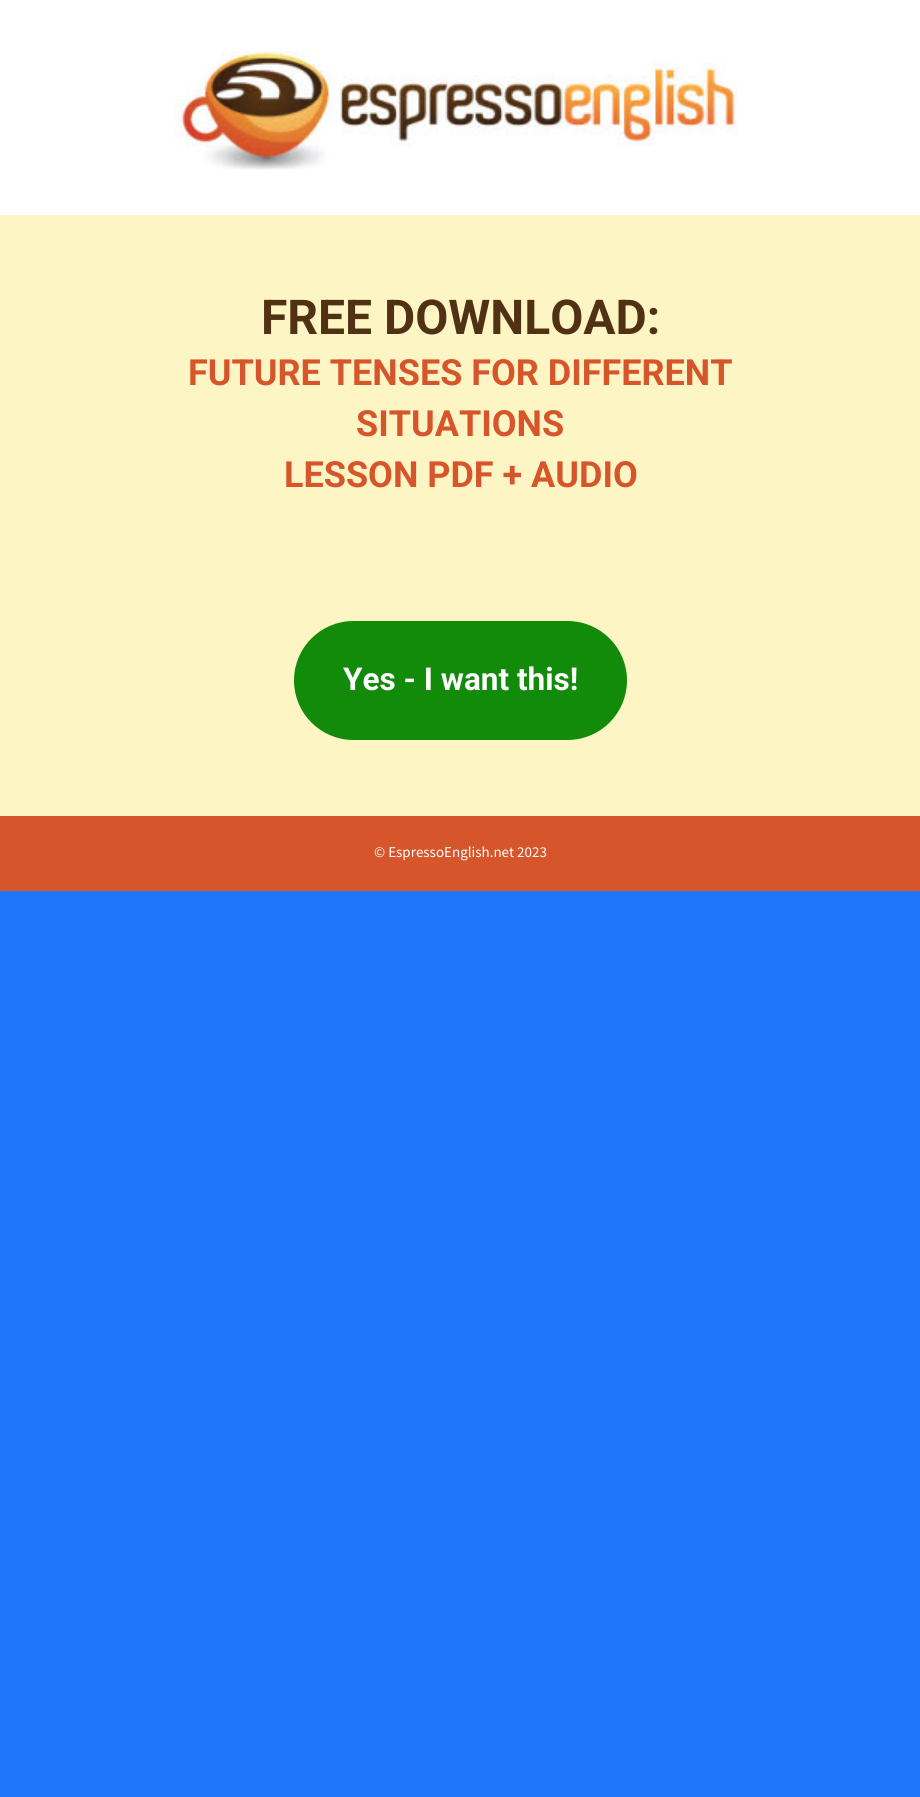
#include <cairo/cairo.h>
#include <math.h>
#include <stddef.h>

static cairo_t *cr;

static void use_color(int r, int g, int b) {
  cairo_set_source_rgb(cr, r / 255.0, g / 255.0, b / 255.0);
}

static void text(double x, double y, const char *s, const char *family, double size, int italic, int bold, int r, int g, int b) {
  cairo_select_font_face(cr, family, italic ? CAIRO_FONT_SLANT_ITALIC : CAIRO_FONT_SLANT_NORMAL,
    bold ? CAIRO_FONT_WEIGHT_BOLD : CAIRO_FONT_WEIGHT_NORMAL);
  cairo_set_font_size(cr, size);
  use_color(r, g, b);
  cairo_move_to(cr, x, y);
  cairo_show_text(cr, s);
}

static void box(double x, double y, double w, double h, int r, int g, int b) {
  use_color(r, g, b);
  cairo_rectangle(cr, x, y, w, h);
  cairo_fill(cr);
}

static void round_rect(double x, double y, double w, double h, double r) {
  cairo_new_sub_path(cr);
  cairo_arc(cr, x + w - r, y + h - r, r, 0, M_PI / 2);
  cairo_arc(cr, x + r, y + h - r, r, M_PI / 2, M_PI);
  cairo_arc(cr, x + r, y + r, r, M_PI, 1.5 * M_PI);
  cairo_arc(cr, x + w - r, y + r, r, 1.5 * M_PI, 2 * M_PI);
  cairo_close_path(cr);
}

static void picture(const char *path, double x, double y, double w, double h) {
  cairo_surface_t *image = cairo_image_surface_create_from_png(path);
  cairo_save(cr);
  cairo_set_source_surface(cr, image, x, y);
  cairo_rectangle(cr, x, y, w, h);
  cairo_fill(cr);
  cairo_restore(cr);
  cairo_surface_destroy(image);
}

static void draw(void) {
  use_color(33, 117, 253);
  cairo_paint(cr);
  box(0, 0, 920, 215, 255, 255, 255);
  picture("img_01.png", 174, 51, 564, 119);
  box(0, 215, 920, 601, 254, 245, 196);
  use_color(18, 138, 10);
  round_rect(295, 622, 331, 117, 58.5);
  cairo_fill_preserve(cr);
  cairo_stroke(cr);
  box(0, 816, 920, 75, 214, 85, 42);
  text(261, 334, "FREE DOWNLOAD:", "Roboto", 48, 0, 1, 81, 49, 19);
  text(188, 385, "FUTURE TENSES FOR DIFFERENT", "Roboto", 36, 0, 1, 214, 85, 42);
  text(356, 436, "SITUATIONS", "Roboto", 36, 0, 1, 214, 85, 42);
  text(284, 487, "LESSON PDF + AUDIO", "Roboto", 36, 0, 1, 214, 85, 42);
  text(343, 690, "Yes - I want this!", "Roboto", 31.5, 0, 1, 255, 255, 255);
  text(374, 857, "© EspressoEnglish.net 2023", "Source Sans Pro", 15, 0, 0, 255, 255, 255);
}

int main(void) {
  cairo_surface_t *surface = cairo_image_surface_create(CAIRO_FORMAT_RGB24, 920, 1797);
  cr = cairo_create(surface);
  cairo_font_options_t *options = cairo_font_options_create();
  cairo_font_options_set_hint_metrics(options, CAIRO_HINT_METRICS_OFF);
  cairo_font_options_set_hint_style(options, CAIRO_HINT_STYLE_NONE);
  cairo_set_font_options(cr, options);
  cairo_set_miter_limit(cr, 4);
  draw();
  cairo_surface_write_to_png(surface, "out.png");
  cairo_font_options_destroy(options);
  cairo_destroy(cr);
  cairo_surface_destroy(surface);
  return 0;
}
